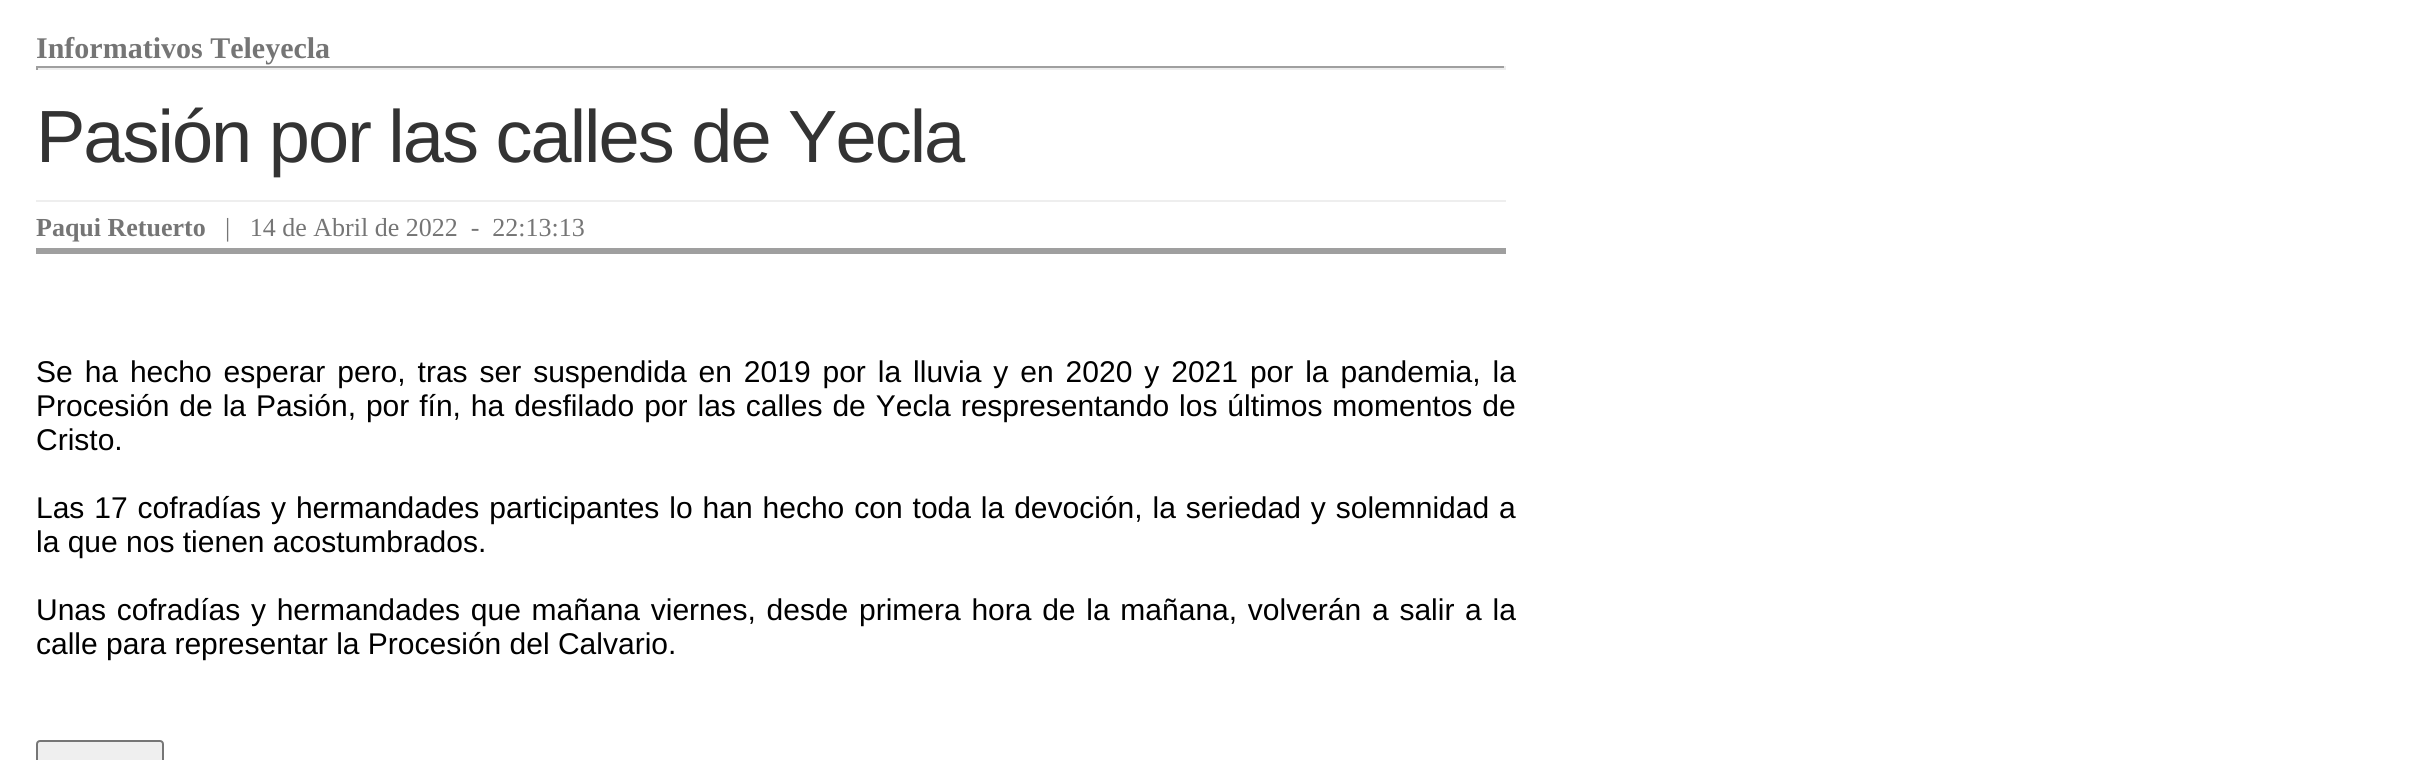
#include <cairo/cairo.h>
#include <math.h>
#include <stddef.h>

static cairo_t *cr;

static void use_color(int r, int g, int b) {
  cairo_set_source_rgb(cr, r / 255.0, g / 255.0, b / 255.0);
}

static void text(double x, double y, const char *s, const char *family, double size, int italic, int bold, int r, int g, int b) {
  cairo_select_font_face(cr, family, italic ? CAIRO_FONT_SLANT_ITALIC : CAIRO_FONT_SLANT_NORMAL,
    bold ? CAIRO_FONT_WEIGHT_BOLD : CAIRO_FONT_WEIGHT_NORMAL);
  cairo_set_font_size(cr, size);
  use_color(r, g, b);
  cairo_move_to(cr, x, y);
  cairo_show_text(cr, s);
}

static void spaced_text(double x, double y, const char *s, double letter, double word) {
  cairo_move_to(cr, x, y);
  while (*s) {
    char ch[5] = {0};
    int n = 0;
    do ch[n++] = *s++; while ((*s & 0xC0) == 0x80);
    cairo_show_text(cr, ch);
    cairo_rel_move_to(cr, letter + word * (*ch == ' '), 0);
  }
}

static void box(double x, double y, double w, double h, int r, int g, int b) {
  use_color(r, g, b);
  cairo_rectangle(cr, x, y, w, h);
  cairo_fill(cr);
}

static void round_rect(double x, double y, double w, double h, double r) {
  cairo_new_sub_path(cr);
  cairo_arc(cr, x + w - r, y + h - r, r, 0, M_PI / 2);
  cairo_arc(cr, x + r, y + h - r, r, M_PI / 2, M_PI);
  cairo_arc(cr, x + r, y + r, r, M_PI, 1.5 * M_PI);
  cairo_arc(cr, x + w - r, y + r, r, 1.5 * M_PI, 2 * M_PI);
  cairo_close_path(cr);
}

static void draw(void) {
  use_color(255, 255, 255);
  cairo_paint(cr);
  box(36, 66, 1470, 2, 159, 159, 159);
  box(1504, 66, 2, 4, 238, 238, 238);
  box(36, 68, 1470, 2, 238, 238, 238);
  box(36, 66, 2, 4, 159, 159, 159);
  box(36, 200, 1470, 2, 238, 238, 238);
  box(36, 248, 1470, 6, 159, 159, 159);
  use_color(239, 239, 239);
  round_rect(37, 741, 126, 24, 3);
  cairo_fill_preserve(cr);
  use_color(118, 118, 118);
  cairo_stroke(cr);
  text(36, 58, "Informativos Teleyecla", "Liberation Serif", 30, 0, 1, 117, 117, 117);
  cairo_select_font_face(cr, "Liberation Sans", CAIRO_FONT_SLANT_NORMAL, CAIRO_FONT_WEIGHT_NORMAL);
  cairo_set_font_size(cr, 74);
  use_color(51, 51, 51);
  spaced_text(36, 162, "Pasión por las calles de Yecla", -2, 0);
  text(36, 236, "Paqui Retuerto", "Liberation Serif", 26, 0, 1, 117, 117, 117);
  text(225, 236, "|   14 de Abril de 2022  -  22:13:13", "Liberation Serif", 26, 0, 0, 117, 117, 117);
  cairo_select_font_face(cr, "Liberation Sans", CAIRO_FONT_SLANT_NORMAL, CAIRO_FONT_WEIGHT_NORMAL);
  cairo_set_font_size(cr, 30);
  use_color(0, 0, 0);
  spaced_text(36, 382, "Se ha hecho esperar pero, tras ser suspendida en 2019 por la lluvia y en 2020 y 2021 por la pandemia, la", 0, 3.6);
  spaced_text(36, 416, "Procesión de la Pasión, por fín, ha desfilado por las calles de Yecla respresentando los últimos momentos de", 0, 1.6);
  text(36, 450, "Cristo.", "Liberation Sans", 30, 0, 0, 0, 0, 0);
  spaced_text(36, 518, "Las 17 cofradías y hermandades participantes lo han hecho con toda la devoción, la seriedad y solemnidad a", 0, 1.6);
  text(36, 552, "la que nos tienen acostumbrados.", "Liberation Sans", 30, 0, 0, 0, 0, 0);
  spaced_text(36, 620, "Unas cofradías y hermandades que mañana viernes, desde primera hora de la mañana, volverán a salir a la", 0, 2.4);
  text(36, 654, "calle para representar la Procesión del Calvario.", "Liberation Sans", 30, 0, 0, 0, 0, 0);
}

int main(void) {
  cairo_surface_t *surface = cairo_image_surface_create(CAIRO_FORMAT_RGB24, 2421, 760);
  cr = cairo_create(surface);
  cairo_font_options_t *options = cairo_font_options_create();
  cairo_font_options_set_hint_metrics(options, CAIRO_HINT_METRICS_OFF);
  cairo_font_options_set_hint_style(options, CAIRO_HINT_STYLE_NONE);
  cairo_set_font_options(cr, options);
  cairo_set_miter_limit(cr, 4);
  draw();
  cairo_surface_write_to_png(surface, "out.png");
  cairo_font_options_destroy(options);
  cairo_destroy(cr);
  cairo_surface_destroy(surface);
  return 0;
}
